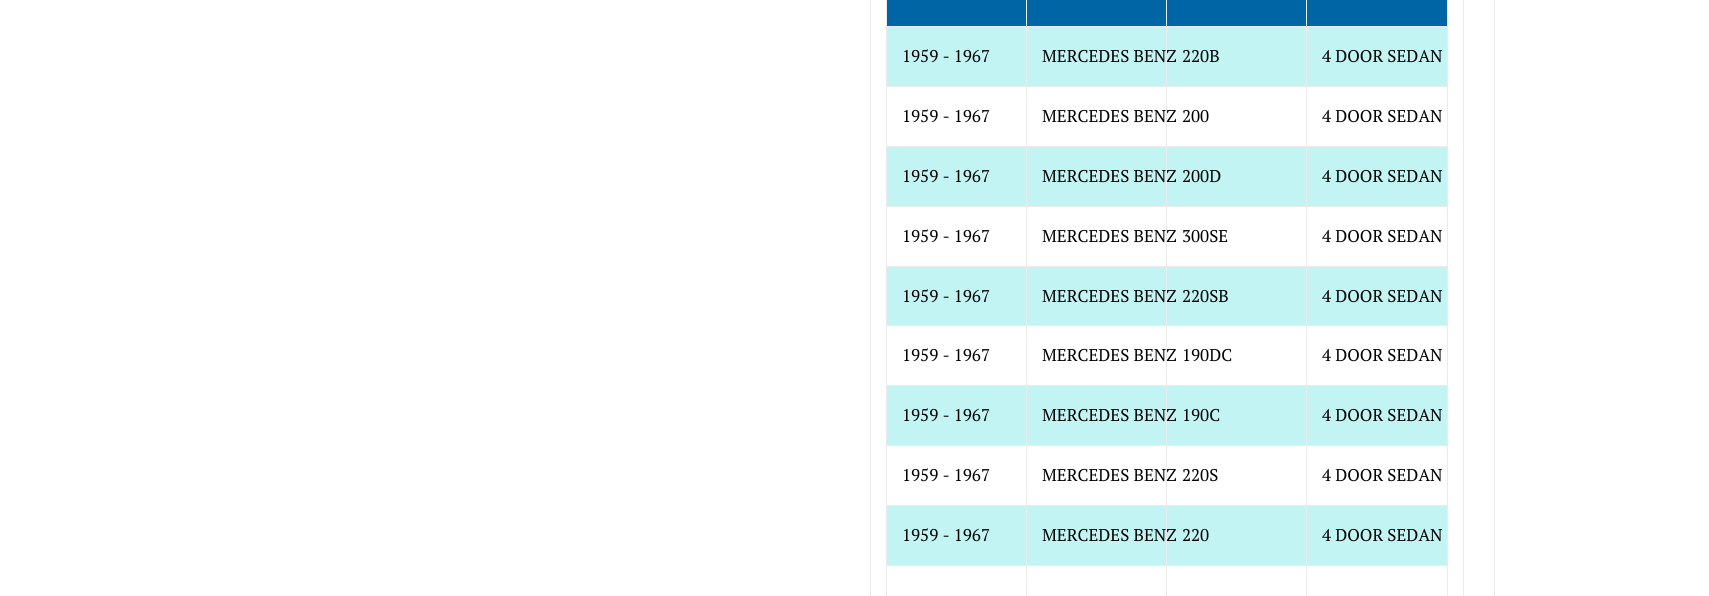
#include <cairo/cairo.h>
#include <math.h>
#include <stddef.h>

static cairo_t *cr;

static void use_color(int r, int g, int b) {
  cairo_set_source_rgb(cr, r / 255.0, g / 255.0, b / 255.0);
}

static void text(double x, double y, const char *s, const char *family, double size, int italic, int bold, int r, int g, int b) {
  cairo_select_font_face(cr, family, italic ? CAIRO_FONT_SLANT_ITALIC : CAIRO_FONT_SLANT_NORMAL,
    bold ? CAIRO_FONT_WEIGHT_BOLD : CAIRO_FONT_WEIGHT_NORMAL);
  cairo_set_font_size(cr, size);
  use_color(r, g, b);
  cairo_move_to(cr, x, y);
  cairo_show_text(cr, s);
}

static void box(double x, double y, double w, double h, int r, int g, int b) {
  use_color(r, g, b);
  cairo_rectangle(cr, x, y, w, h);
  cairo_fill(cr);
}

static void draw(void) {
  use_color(255, 255, 255);
  cairo_paint(cr);
  box(870, 0, 1, 596, 235, 235, 235);
  box(887, 0, 560, 26, 0, 101, 165);
  box(1306, 26, 142, 1, 235, 235, 235);
  box(887, 27, 560, 59, 195, 244, 244);
  box(1306, 86, 142, 1, 235, 235, 235);
  box(1306, 146, 142, 1, 235, 235, 235);
  box(887, 147, 560, 59, 195, 244, 244);
  box(1306, 206, 142, 1, 235, 235, 235);
  box(1306, 266, 142, 1, 235, 235, 235);
  box(887, 267, 560, 58, 195, 244, 244);
  box(1306, 325, 142, 1, 235, 235, 235);
  box(1306, 385, 142, 1, 235, 235, 235);
  box(887, 386, 560, 59, 195, 244, 244);
  box(1306, 445, 142, 1, 235, 235, 235);
  box(1306, 505, 142, 1, 235, 235, 235);
  box(887, 506, 560, 59, 195, 244, 244);
  box(1306, 565, 142, 1, 235, 235, 235);
  box(1306, 565, 1, 31, 235, 235, 235);
  box(1166, 565, 141, 1, 235, 235, 235);
  box(1306, 505, 1, 61, 235, 235, 235);
  box(1166, 505, 141, 1, 235, 235, 235);
  box(1306, 445, 1, 61, 235, 235, 235);
  box(1166, 445, 141, 1, 235, 235, 235);
  box(1306, 385, 1, 61, 235, 235, 235);
  box(1166, 385, 141, 1, 235, 235, 235);
  box(1306, 325, 1, 61, 235, 235, 235);
  box(1166, 325, 141, 1, 235, 235, 235);
  box(1306, 266, 1, 60, 235, 235, 235);
  box(1166, 266, 141, 1, 235, 235, 235);
  box(1306, 206, 1, 61, 235, 235, 235);
  box(1166, 206, 141, 1, 235, 235, 235);
  box(1306, 146, 1, 61, 235, 235, 235);
  box(1166, 146, 141, 1, 235, 235, 235);
  box(1306, 86, 1, 61, 235, 235, 235);
  box(1166, 86, 141, 1, 235, 235, 235);
  box(1306, 26, 1, 61, 235, 235, 235);
  box(1166, 26, 141, 1, 235, 235, 235);
  box(1166, 565, 1, 31, 235, 235, 235);
  box(1026, 565, 141, 1, 235, 235, 235);
  box(1166, 505, 1, 61, 235, 235, 235);
  box(1026, 505, 141, 1, 235, 235, 235);
  box(1166, 445, 1, 61, 235, 235, 235);
  box(1026, 445, 141, 1, 235, 235, 235);
  box(1166, 385, 1, 61, 235, 235, 235);
  box(1026, 385, 141, 1, 235, 235, 235);
  box(1166, 325, 1, 61, 235, 235, 235);
  box(1026, 325, 141, 1, 235, 235, 235);
  box(1166, 266, 1, 60, 235, 235, 235);
  box(1026, 266, 141, 1, 235, 235, 235);
  box(1166, 206, 1, 61, 235, 235, 235);
  box(1026, 206, 141, 1, 235, 235, 235);
  box(1166, 146, 1, 61, 235, 235, 235);
  box(1026, 146, 141, 1, 235, 235, 235);
  box(1166, 86, 1, 61, 235, 235, 235);
  box(1026, 86, 141, 1, 235, 235, 235);
  box(1166, 26, 1, 61, 235, 235, 235);
  box(1026, 26, 141, 1, 235, 235, 235);
  box(1026, 565, 1, 31, 235, 235, 235);
  box(886, 565, 141, 1, 235, 235, 235);
  box(1026, 505, 1, 61, 235, 235, 235);
  box(886, 505, 141, 1, 235, 235, 235);
  box(1026, 445, 1, 61, 235, 235, 235);
  box(886, 445, 141, 1, 235, 235, 235);
  box(1026, 385, 1, 61, 235, 235, 235);
  box(886, 385, 141, 1, 235, 235, 235);
  box(1026, 325, 1, 61, 235, 235, 235);
  box(886, 325, 141, 1, 235, 235, 235);
  box(1026, 266, 1, 60, 235, 235, 235);
  box(886, 266, 141, 1, 235, 235, 235);
  box(1026, 206, 1, 61, 235, 235, 235);
  box(886, 206, 141, 1, 235, 235, 235);
  box(1026, 146, 1, 61, 235, 235, 235);
  box(886, 146, 141, 1, 235, 235, 235);
  box(1026, 86, 1, 61, 235, 235, 235);
  box(886, 86, 141, 1, 235, 235, 235);
  box(1026, 26, 1, 61, 235, 235, 235);
  box(886, 26, 141, 1, 235, 235, 235);
  box(1026, 0, 1, 27, 235, 235, 235);
  box(1166, 0, 1, 27, 235, 235, 235);
  box(1306, 0, 1, 27, 235, 235, 235);
  box(886, 565, 1, 31, 235, 235, 235);
  box(886, 505, 1, 61, 235, 235, 235);
  box(886, 445, 1, 61, 235, 235, 235);
  box(886, 385, 1, 61, 235, 235, 235);
  box(886, 325, 1, 61, 235, 235, 235);
  box(886, 266, 1, 60, 235, 235, 235);
  box(886, 206, 1, 61, 235, 235, 235);
  box(886, 146, 1, 61, 235, 235, 235);
  box(886, 86, 1, 61, 235, 235, 235);
  box(886, 0, 1, 87, 235, 235, 235);
  box(1447, 565, 1, 31, 235, 235, 235);
  box(1447, 505, 1, 61, 235, 235, 235);
  box(1447, 445, 1, 61, 235, 235, 235);
  box(1447, 385, 1, 61, 235, 235, 235);
  box(1447, 325, 1, 61, 235, 235, 235);
  box(1447, 266, 1, 60, 235, 235, 235);
  box(1447, 206, 1, 61, 235, 235, 235);
  box(1447, 146, 1, 61, 235, 235, 235);
  box(1447, 86, 1, 61, 235, 235, 235);
  box(1447, 0, 1, 87, 235, 235, 235);
  box(1494, 0, 1, 596, 235, 235, 235);
  box(1463, 0, 1, 596, 235, 235, 235);
  text(902, 62, "1959 - 1967", "PT Serif", 17, 0, 0, 0, 0, 0);
  text(1042, 62, "MERCEDES BENZ", "PT Serif", 17, 0, 0, 0, 0, 0);
  text(1182, 62, "220B", "PT Serif", 17, 0, 0, 0, 0, 0);
  text(1322, 62, "4 DOOR SEDAN", "PT Serif", 17, 0, 0, 0, 0, 0);
  text(902, 122, "1959 - 1967", "PT Serif", 17, 0, 0, 0, 0, 0);
  text(1042, 122, "MERCEDES BENZ", "PT Serif", 17, 0, 0, 0, 0, 0);
  text(1182, 122, "200", "PT Serif", 17, 0, 0, 0, 0, 0);
  text(1322, 122, "4 DOOR SEDAN", "PT Serif", 17, 0, 0, 0, 0, 0);
  text(902, 182, "1959 - 1967", "PT Serif", 17, 0, 0, 0, 0, 0);
  text(1042, 182, "MERCEDES BENZ", "PT Serif", 17, 0, 0, 0, 0, 0);
  text(1182, 182, "200D", "PT Serif", 17, 0, 0, 0, 0, 0);
  text(1322, 182, "4 DOOR SEDAN", "PT Serif", 17, 0, 0, 0, 0, 0);
  text(902, 242, "1959 - 1967", "PT Serif", 17, 0, 0, 0, 0, 0);
  text(1042, 242, "MERCEDES BENZ", "PT Serif", 17, 0, 0, 0, 0, 0);
  text(1182, 242, "300SE", "PT Serif", 17, 0, 0, 0, 0, 0);
  text(1322, 242, "4 DOOR SEDAN", "PT Serif", 17, 0, 0, 0, 0, 0);
  text(902, 302, "1959 - 1967", "PT Serif", 17, 0, 0, 0, 0, 0);
  text(1042, 302, "MERCEDES BENZ", "PT Serif", 17, 0, 0, 0, 0, 0);
  text(1182, 302, "220SB", "PT Serif", 17, 0, 0, 0, 0, 0);
  text(1322, 302, "4 DOOR SEDAN", "PT Serif", 17, 0, 0, 0, 0, 0);
  text(902, 361, "1959 - 1967", "PT Serif", 17, 0, 0, 0, 0, 0);
  text(1042, 361, "MERCEDES BENZ", "PT Serif", 17, 0, 0, 0, 0, 0);
  text(1182, 361, "190DC", "PT Serif", 17, 0, 0, 0, 0, 0);
  text(1322, 361, "4 DOOR SEDAN", "PT Serif", 17, 0, 0, 0, 0, 0);
  text(902, 421, "1959 - 1967", "PT Serif", 17, 0, 0, 0, 0, 0);
  text(1042, 421, "MERCEDES BENZ", "PT Serif", 17, 0, 0, 0, 0, 0);
  text(1182, 421, "190C", "PT Serif", 17, 0, 0, 0, 0, 0);
  text(1322, 421, "4 DOOR SEDAN", "PT Serif", 17, 0, 0, 0, 0, 0);
  text(902, 481, "1959 - 1967", "PT Serif", 17, 0, 0, 0, 0, 0);
  text(1042, 481, "MERCEDES BENZ", "PT Serif", 17, 0, 0, 0, 0, 0);
  text(1182, 481, "220S", "PT Serif", 17, 0, 0, 0, 0, 0);
  text(1322, 481, "4 DOOR SEDAN", "PT Serif", 17, 0, 0, 0, 0, 0);
  text(902, 541, "1959 - 1967", "PT Serif", 17, 0, 0, 0, 0, 0);
  text(1042, 541, "MERCEDES BENZ", "PT Serif", 17, 0, 0, 0, 0, 0);
  text(1182, 541, "220", "PT Serif", 17, 0, 0, 0, 0, 0);
  text(1322, 541, "4 DOOR SEDAN", "PT Serif", 17, 0, 0, 0, 0, 0);
}

int main(void) {
  cairo_surface_t *surface = cairo_image_surface_create(CAIRO_FORMAT_RGB24, 1709, 596);
  cr = cairo_create(surface);
  cairo_font_options_t *options = cairo_font_options_create();
  cairo_font_options_set_hint_metrics(options, CAIRO_HINT_METRICS_OFF);
  cairo_font_options_set_hint_style(options, CAIRO_HINT_STYLE_NONE);
  cairo_set_font_options(cr, options);
  cairo_set_miter_limit(cr, 4);
  draw();
  cairo_surface_write_to_png(surface, "out.png");
  cairo_font_options_destroy(options);
  cairo_destroy(cr);
  cairo_surface_destroy(surface);
  return 0;
}
